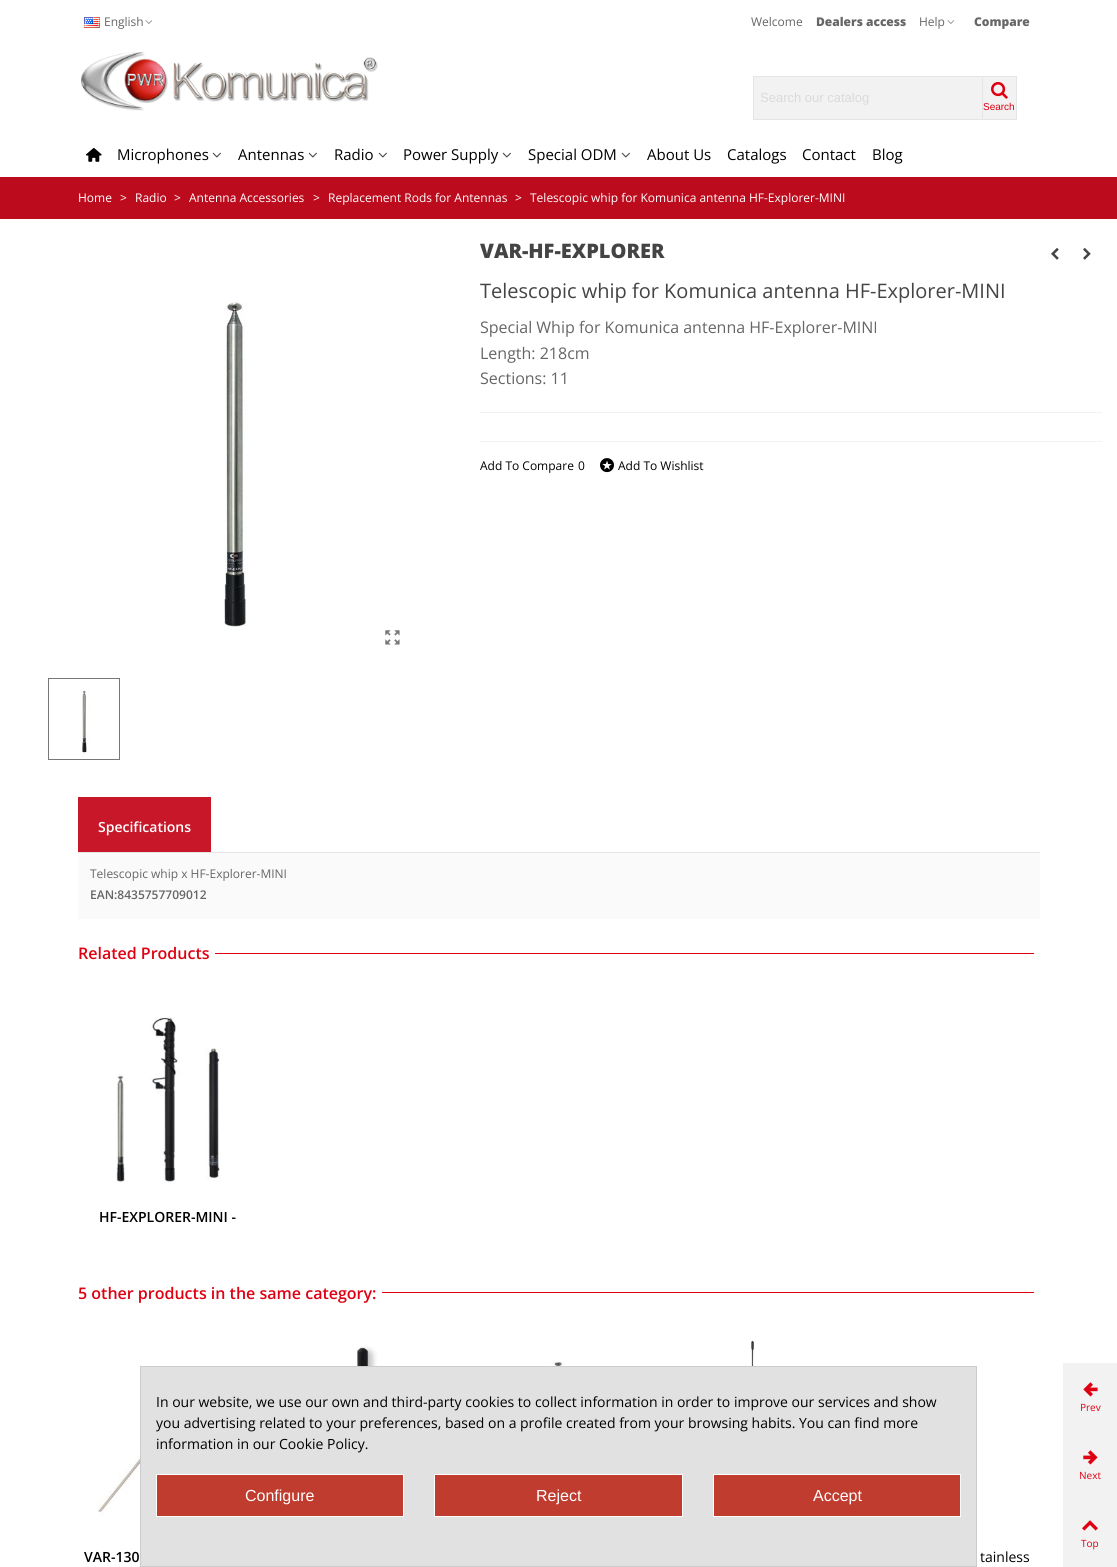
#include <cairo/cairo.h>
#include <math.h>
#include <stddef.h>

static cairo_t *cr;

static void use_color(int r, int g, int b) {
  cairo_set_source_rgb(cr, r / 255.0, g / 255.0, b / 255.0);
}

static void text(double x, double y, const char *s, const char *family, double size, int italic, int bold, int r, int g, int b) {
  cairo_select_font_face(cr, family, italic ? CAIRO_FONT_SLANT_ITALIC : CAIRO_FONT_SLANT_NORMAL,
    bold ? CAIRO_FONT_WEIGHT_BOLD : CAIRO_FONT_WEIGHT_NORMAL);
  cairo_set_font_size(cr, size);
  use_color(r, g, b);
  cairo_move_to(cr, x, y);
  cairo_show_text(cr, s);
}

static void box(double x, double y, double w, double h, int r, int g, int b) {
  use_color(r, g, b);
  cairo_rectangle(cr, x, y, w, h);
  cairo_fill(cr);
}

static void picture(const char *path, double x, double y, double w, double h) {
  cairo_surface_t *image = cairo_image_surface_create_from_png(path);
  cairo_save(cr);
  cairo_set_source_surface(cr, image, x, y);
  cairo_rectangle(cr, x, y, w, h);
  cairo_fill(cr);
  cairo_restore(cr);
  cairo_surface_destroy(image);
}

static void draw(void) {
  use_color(255, 255, 255);
  cairo_paint(cr);
  picture("img_01.png", 84, 17, 16, 11);
  picture("img_02.png", 145, 20, 8, 4);
  picture("img_02.png", 947, 20, 8, 4);
  picture("img_03.png", 81, 52, 297, 59);
  cairo_rectangle(cr, 753.5, 76.5, 263, 43);
  use_color(229, 229, 229);
  cairo_set_line_width(cr, 1);
  cairo_stroke(cr);
  box(754, 77, 228, 42, 242, 242, 242);
  box(983, 77, 33, 42, 242, 242, 242);
  box(982, 77, 1, 42, 229, 229, 229);
  picture("img_04.png", 991, 82, 17, 17);
  picture("img_05.png", 86, 147, 16, 15);
  picture("img_06.png", 212, 152, 9, 6);
  picture("img_06.png", 308, 152, 9, 6);
  picture("img_06.png", 378, 152, 9, 6);
  picture("img_06.png", 502, 152, 9, 6);
  picture("img_06.png", 621, 152, 9, 6);
  box(0, 177, 1117, 42, 188, 11, 29);
  picture("img_07.png", 224, 302, 24, 328);
  picture("img_08.png", 385, 630, 15, 15);
  cairo_rectangle(cr, 48.5, 678.5, 71, 81);
  use_color(119, 119, 119);
  cairo_stroke(cr);
  picture("img_09.png", 81, 690, 8, 67);
  picture("img_10.png", 1051, 248, 8, 12);
  picture("img_11.png", 1083, 247, 8, 13);
  box(480, 412, 622, 1, 242, 242, 242);
  box(480, 441, 622, 1, 242, 242, 242);
  picture("img_12.png", 600, 458, 14, 15);
  box(78, 852, 962, 1, 229, 229, 229);
  box(78, 797, 133, 55, 200, 23, 41);
  box(78, 853, 962, 66, 250, 250, 250);
  box(215, 953, 819, 1, 223, 0, 17);
  picture("img_13.png", 116, 1017, 105, 165);
  box(382, 1292, 652, 1, 223, 0, 17);
  picture("img_14.png", 354, 1346, 25, 20);
  picture("img_15.png", 550, 1361, 15, 5);
  picture("img_16.png", 750, 1340, 5, 26);
  picture("img_17.png", 98, 1394, 42, 121);
  box(1063, 1363, 54, 204, 242, 242, 242);
  picture("img_18.png", 1083, 1382, 15, 15);
  picture("img_19.png", 1083, 1450, 15, 15);
  picture("img_20.png", 1082, 1520, 16, 11);
  use_color(225, 225, 225);
  cairo_rectangle(cr, 140.5, 1366.5, 836, 200);
  cairo_fill_preserve(cr);
  use_color(204, 204, 204);
  cairo_stroke(cr);
  use_color(192, 60, 46);
  cairo_rectangle(cr, 156.5, 1474.5, 247, 42);
  cairo_fill_preserve(cr);
  use_color(255, 255, 255);
  cairo_stroke(cr);
  use_color(192, 60, 46);
  cairo_rectangle(cr, 434.5, 1474.5, 248, 42);
  cairo_fill_preserve(cr);
  use_color(255, 255, 255);
  cairo_stroke(cr);
  use_color(192, 60, 46);
  cairo_rectangle(cr, 713.5, 1474.5, 247, 42);
  cairo_fill_preserve(cr);
  use_color(255, 255, 255);
  cairo_stroke(cr);
  text(104, 26, "English", "Open Sans", 12, 0, 0, 102, 102, 102);
  text(751, 26, "Welcome", "Open Sans", 12, 0, 0, 102, 102, 102);
  text(816, 26, "Dealers access", "Open Sans ExtraBold", 12, 0, 0, 102, 102, 102);
  text(919, 26, "Help", "Open Sans", 12, 0, 0, 102, 102, 102);
  text(974, 26, "Compare", "Open Sans ExtraBold", 12, 0, 0, 102, 102, 102);
  text(760, 102, "Search our catalog", "Liberation Sans", 13, 0, 0, 218, 218, 218);
  text(983, 110, "Search", "Liberation Sans", 10, 0, 0, 223, 0, 17);
  text(117, 160, "Microphones", "Open Sans", 15, 0, 0, 0, 0, 0);
  text(238, 160, "Antennas", "Open Sans", 15, 0, 0, 0, 0, 0);
  text(334, 160, "Radio", "Open Sans", 15, 0, 0, 0, 0, 0);
  text(403, 160, "Power Supply", "Open Sans", 15, 0, 0, 0, 0, 0);
  text(528, 160, "Special ODM", "Open Sans", 15, 0, 0, 0, 0, 0);
  text(647, 160, "About Us", "Open Sans", 15, 0, 0, 0, 0, 0);
  text(727, 160, "Catalogs", "Open Sans", 15, 0, 0, 0, 0, 0);
  text(802, 160, "Contact", "Open Sans", 15, 0, 0, 0, 0, 0);
  text(872, 160, "Blog", "Open Sans", 15, 0, 0, 0, 0, 0);
  text(78, 202, "Home", "Open Sans", 12, 0, 0, 255, 255, 255);
  text(120, 202, ">", "Open Sans", 12, 0, 0, 255, 255, 255);
  text(135, 202, "Radio", "Open Sans", 12, 0, 0, 255, 255, 255);
  text(174, 202, ">", "Open Sans", 12, 0, 0, 255, 255, 255);
  text(189, 202, "Antenna Accessories", "Open Sans", 12, 0, 0, 255, 255, 255);
  text(313, 202, ">", "Open Sans", 12, 0, 0, 255, 255, 255);
  text(328, 202, "Replacement Rods for Antennas", "Open Sans", 12, 0, 0, 255, 255, 255);
  text(515, 202, ">", "Open Sans", 12, 0, 0, 255, 255, 255);
  text(530, 202, "Telescopic whip for Komunica antenna HF-Explorer-MINI", "Open Sans", 12, 0, 0, 255, 255, 255);
  text(480, 258, "VAR-HF-EXPLORER", "Open Sans ExtraBold", 20, 0, 0, 68, 68, 68);
  text(480, 298, "Telescopic whip for Komunica antenna HF-Explorer-MINI", "Open Sans", 20, 0, 0, 68, 68, 68);
  text(480, 333, "Special Whip for Komunica antenna HF-Explorer-MINI", "Open Sans", 16, 0, 0, 102, 102, 102);
  text(480, 359, "Length: 218cm", "Open Sans", 16, 0, 0, 102, 102, 102);
  text(480, 384, "Sections: 11", "Open Sans", 16, 0, 0, 102, 102, 102);
  text(480, 470, "Add To Compare", "Open Sans", 12, 0, 0, 0, 0, 0);
  text(578, 470, "0", "Open Sans", 12, 0, 0, 0, 0, 0);
  text(618, 470, "Add To Wishlist", "Open Sans", 12, 0, 0, 0, 0, 0);
  text(98, 832, "Specifications", "Open Sans SemiBold", 14, 0, 0, 255, 255, 255);
  text(90, 878, "Telescopic whip x HF-Explorer-MINI", "Open Sans", 12, 0, 0, 102, 102, 102);
  text(90, 899, "EAN:8435757709012", "Open Sans SemiBold", 12, 0, 0, 102, 102, 102);
  text(78, 959, "Related Products", "Open Sans SemiBold", 16, 0, 0, 223, 0, 17);
  text(99, 1222, "HF-EXPLORER-MINI -", "Open Sans SemiBold", 14, 0, 0, 0, 0, 0);
  text(78, 1299, "5 other products in the same category:", "Open Sans SemiBold", 16, 0, 0, 223, 0, 17);
  text(84, 1562, "VAR-130", "Open Sans SemiBold", 14, 0, 0, 0, 0, 0);
  text(980, 1562, "tainless", "Open Sans", 14, 0, 0, 0, 0, 0);
  text(1080, 1411, "Prev", "Open Sans", 10, 0, 0, 223, 0, 17);
  text(1079, 1479, "Next", "Open Sans", 10, 0, 0, 223, 0, 17);
  text(1081, 1547, "Top", "Open Sans", 10, 0, 0, 223, 0, 17);
  text(156, 1407, "In our website, we use our own and third-party cookies to collect information in order to improve our services and show", "Open Sans", 14, 0, 0, 0, 0, 0);
  cairo_save(cr);
  cairo_rectangle(cr, 156, 1391, 805, 63);
  cairo_clip(cr);
  text(156, 1428, "you advertising related to your preferences, based on a profile created from your browsing habits. You can find more", "Open Sans", 14, 0, 0, 0, 0, 0);
  cairo_restore(cr);
  text(156, 1449, "information in our Cookie Policy.", "Open Sans", 14, 0, 0, 0, 0, 0);
  text(245, 1501, "Configure", "Liberation Sans", 16, 0, 0, 255, 255, 255);
  text(536, 1501, "Reject", "Liberation Sans", 16, 0, 0, 255, 255, 255);
  text(813, 1501, "Accept", "Liberation Sans", 16, 0, 0, 255, 255, 255);
}

int main(void) {
  cairo_surface_t *surface = cairo_image_surface_create(CAIRO_FORMAT_RGB24, 1117, 1567);
  cr = cairo_create(surface);
  cairo_font_options_t *options = cairo_font_options_create();
  cairo_font_options_set_hint_metrics(options, CAIRO_HINT_METRICS_OFF);
  cairo_font_options_set_hint_style(options, CAIRO_HINT_STYLE_NONE);
  cairo_set_font_options(cr, options);
  cairo_set_miter_limit(cr, 4);
  draw();
  cairo_surface_write_to_png(surface, "out.png");
  cairo_font_options_destroy(options);
  cairo_destroy(cr);
  cairo_surface_destroy(surface);
  return 0;
}
